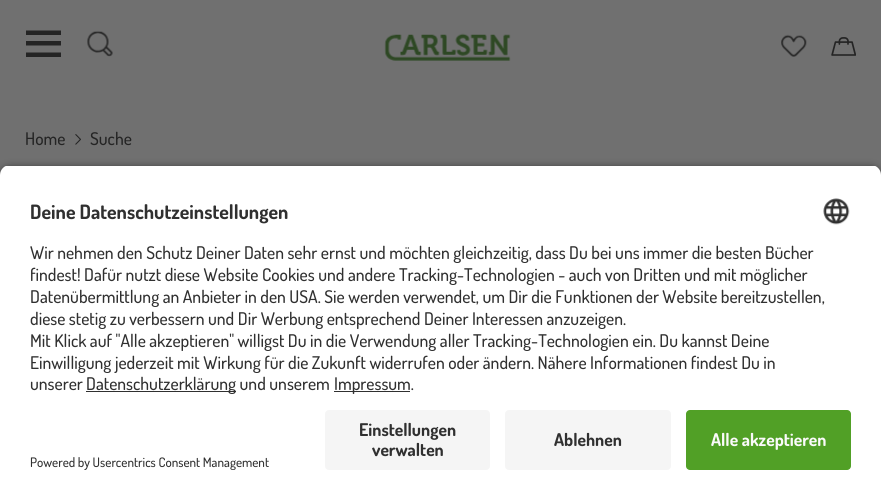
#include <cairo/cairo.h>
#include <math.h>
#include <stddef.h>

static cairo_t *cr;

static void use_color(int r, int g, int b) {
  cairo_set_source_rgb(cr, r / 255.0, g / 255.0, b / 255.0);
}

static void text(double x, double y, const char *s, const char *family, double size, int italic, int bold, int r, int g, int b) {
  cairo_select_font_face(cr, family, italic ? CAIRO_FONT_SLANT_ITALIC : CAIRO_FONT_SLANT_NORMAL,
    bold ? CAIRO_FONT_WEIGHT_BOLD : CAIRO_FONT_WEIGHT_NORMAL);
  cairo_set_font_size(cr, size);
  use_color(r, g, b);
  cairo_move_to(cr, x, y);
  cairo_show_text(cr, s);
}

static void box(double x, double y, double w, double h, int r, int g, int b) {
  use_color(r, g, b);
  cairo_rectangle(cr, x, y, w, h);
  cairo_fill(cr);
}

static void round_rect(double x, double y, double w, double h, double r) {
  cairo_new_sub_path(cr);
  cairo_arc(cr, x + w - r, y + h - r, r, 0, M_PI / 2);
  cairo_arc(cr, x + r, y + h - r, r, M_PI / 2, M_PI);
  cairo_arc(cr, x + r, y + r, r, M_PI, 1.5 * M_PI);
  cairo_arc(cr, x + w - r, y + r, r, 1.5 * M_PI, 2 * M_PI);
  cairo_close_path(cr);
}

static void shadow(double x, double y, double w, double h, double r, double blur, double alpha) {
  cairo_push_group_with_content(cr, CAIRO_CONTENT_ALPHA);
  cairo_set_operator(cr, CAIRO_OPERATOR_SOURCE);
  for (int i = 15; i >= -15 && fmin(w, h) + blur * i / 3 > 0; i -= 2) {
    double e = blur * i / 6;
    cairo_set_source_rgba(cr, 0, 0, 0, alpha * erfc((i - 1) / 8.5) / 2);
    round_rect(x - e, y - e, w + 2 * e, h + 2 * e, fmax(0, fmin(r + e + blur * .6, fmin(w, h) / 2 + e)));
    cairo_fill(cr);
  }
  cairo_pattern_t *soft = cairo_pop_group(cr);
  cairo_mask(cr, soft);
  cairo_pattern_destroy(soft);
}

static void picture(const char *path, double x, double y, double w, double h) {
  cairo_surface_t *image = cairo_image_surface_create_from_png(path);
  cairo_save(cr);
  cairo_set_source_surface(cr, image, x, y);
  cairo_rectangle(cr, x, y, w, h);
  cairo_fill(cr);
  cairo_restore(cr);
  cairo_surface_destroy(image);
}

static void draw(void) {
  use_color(112, 112, 112);
  cairo_paint(cr);
  use_color(36, 36, 36);
  cairo_new_path(cr);
  cairo_move_to(cr, 61, 30.5);
  cairo_line_to(cr, 61, 35);
  cairo_line_to(cr, 26, 35);
  cairo_line_to(cr, 26, 30.5);
  cairo_close_path(cr);
  cairo_move_to(cr, 61, 41);
  cairo_line_to(cr, 61, 45.5);
  cairo_line_to(cr, 26, 45.5);
  cairo_line_to(cr, 26, 41);
  cairo_close_path(cr);
  cairo_move_to(cr, 61, 52.5);
  cairo_line_to(cr, 61, 57);
  cairo_line_to(cr, 26, 57);
  cairo_line_to(cr, 26, 52.5);
  cairo_close_path(cr);
  cairo_fill(cr);
  picture("img_01.png", 87, 30, 26, 27);
  picture("img_02.png", 384, 33, 127, 28);
  picture("img_03.png", 781, 34, 26, 23);
  picture("img_04.png", 831, 37, 25, 19);
  picture("img_05.png", 75, 134, 6, 11);
  use_color(0, 0, 0);
  shadow(0, 169, 881, 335, 10, 4.5, 0.8);
  cairo_save(cr);
  cairo_new_path(cr);
  cairo_move_to(cr, 10, 165);
  cairo_line_to(cr, 871, 165);
  cairo_curve_to(cr, 876.5, 165, 881, 169.5, 881, 175);
  cairo_line_to(cr, 881, 400);
  cairo_line_to(cr, 0, 400);
  cairo_line_to(cr, 0, 175);
  cairo_curve_to(cr, 0, 169.5, 4.5, 165, 10, 165);
  cairo_close_path(cr);
  cairo_clip(cr);
  box(0, 166, 881, 234, 255, 255, 255);
  cairo_restore(cr);
  picture("img_06.png", 823, 198, 27, 27);
  box(86, 391, 150, 1, 48, 48, 48);
  box(334, 391, 76, 1, 48, 48, 48);
  box(0, 400, 881, 99, 255, 255, 255);
  use_color(245, 245, 245);
  round_rect(325, 410, 165, 60, 4);
  cairo_fill(cr);
  round_rect(505, 410, 166, 60, 4);
  cairo_fill(cr);
  use_color(81, 160, 38);
  round_rect(686, 410, 165, 60, 4);
  cairo_fill(cr);
  text(25, 145, "Home", "Dosis Medium", 17.5, 0, 0, 36, 36, 36);
  text(90, 145, "Suche", "Dosis Medium", 17.5, 0, 0, 36, 36, 36);
  text(30, 219, "Deine Datenschutzeinstellungen", "Dosis", 19.75, 0, 1, 48, 48, 48);
  text(30, 259, "Wir nehmen den Schutz Deiner Daten sehr ernst und möchten gleichzeitig, dass Du bei uns immer die besten Bücher", "Dosis Medium", 17.5, 0, 0, 48, 48, 48);
  text(30, 281, "findest! Dafür nutzt diese Website Cookies und andere Tracking-Technologien - auch von Dritten und mit möglicher", "Dosis Medium", 17.5, 0, 0, 48, 48, 48);
  text(30, 303, "Datenübermittlung an Anbieter in den USA. Sie werden verwendet, um Dir die Funktionen der Website bereitzustellen,", "Dosis Medium", 17.5, 0, 0, 48, 48, 48);
  text(30, 325, "diese stetig zu verbessern und Dir Werbung entsprechend Deiner Interessen anzuzeigen.", "Dosis Medium", 17.5, 0, 0, 48, 48, 48);
  text(30, 347, "Mit Klick auf \"Alle akzeptieren\" willigst Du in die Verwendung aller Tracking-Technologien ein. Du kannst Deine", "Dosis Medium", 17.5, 0, 0, 48, 48, 48);
  text(30, 369, "Einwilligung jederzeit mit Wirkung für die Zukunft widerrufen oder ändern. Nähere Informationen findest Du in", "Dosis Medium", 17.5, 0, 0, 48, 48, 48);
  text(30, 390, "unserer", "Dosis Medium", 17.5, 0, 0, 48, 48, 48);
  text(86, 390, "Datenschutzerklärung und unserem", "Dosis Medium", 17.5, 0, 0, 48, 48, 48);
  text(334, 390, "Impressum.", "Dosis Medium", 17.5, 0, 0, 48, 48, 48);
  text(359, 436, "Einstellungen", "Dosis", 17.5, 0, 1, 48, 48, 48);
  text(372, 456, "verwalten", "Dosis", 17.5, 0, 1, 48, 48, 48);
  text(554, 446, "Ablehnen", "Dosis", 17.5, 0, 1, 48, 48, 48);
  text(711, 446, "Alle akzeptieren", "Dosis", 17.5, 0, 1, 250, 250, 250);
  text(30, 467, "Powered by Usercentrics Consent Management", "Dosis Medium", 13.1, 0, 0, 48, 48, 48);
}

int main(void) {
  cairo_surface_t *surface = cairo_image_surface_create(CAIRO_FORMAT_RGB24, 881, 499);
  cr = cairo_create(surface);
  cairo_font_options_t *options = cairo_font_options_create();
  cairo_font_options_set_hint_metrics(options, CAIRO_HINT_METRICS_OFF);
  cairo_font_options_set_hint_style(options, CAIRO_HINT_STYLE_NONE);
  cairo_set_font_options(cr, options);
  cairo_set_miter_limit(cr, 4);
  draw();
  cairo_surface_write_to_png(surface, "out.png");
  cairo_font_options_destroy(options);
  cairo_destroy(cr);
  cairo_surface_destroy(surface);
  return 0;
}
